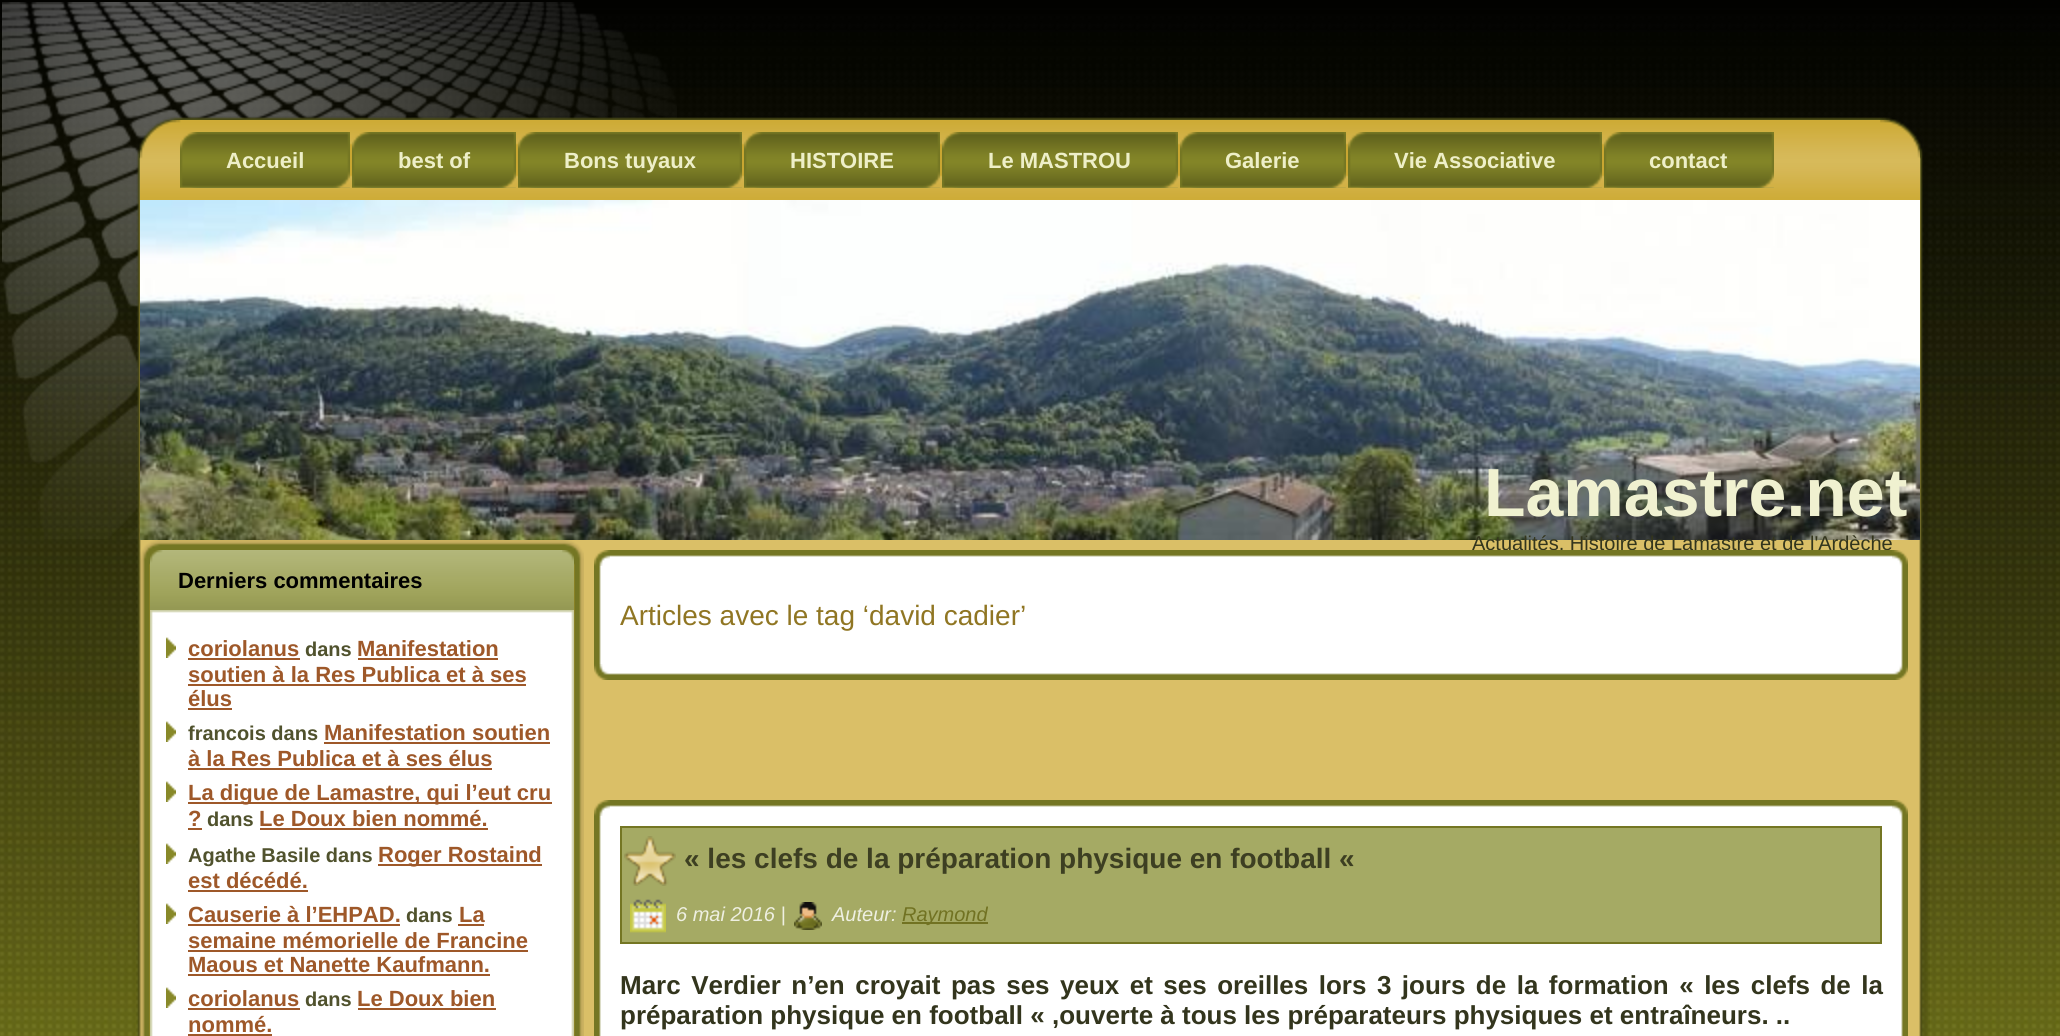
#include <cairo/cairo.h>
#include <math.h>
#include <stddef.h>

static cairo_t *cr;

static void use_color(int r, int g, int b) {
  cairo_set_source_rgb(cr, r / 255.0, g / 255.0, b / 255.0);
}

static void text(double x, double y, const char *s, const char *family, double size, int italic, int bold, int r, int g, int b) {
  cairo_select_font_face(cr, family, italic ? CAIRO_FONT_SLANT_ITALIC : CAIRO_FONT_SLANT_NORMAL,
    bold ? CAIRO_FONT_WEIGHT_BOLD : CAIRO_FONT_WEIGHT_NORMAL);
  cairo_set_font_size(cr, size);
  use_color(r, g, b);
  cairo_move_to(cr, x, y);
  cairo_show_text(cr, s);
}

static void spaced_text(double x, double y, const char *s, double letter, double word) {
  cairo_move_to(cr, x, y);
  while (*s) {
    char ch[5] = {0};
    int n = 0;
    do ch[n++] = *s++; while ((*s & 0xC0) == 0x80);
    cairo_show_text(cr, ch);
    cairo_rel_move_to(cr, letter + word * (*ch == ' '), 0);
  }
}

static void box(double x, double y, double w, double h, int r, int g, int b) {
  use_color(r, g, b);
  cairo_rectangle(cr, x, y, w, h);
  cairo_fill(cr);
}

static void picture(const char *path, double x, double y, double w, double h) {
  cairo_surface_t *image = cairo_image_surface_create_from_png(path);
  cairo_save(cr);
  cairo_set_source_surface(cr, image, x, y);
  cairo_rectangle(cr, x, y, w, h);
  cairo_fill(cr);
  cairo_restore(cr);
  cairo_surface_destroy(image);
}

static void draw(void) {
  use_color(255, 255, 255);
  cairo_paint(cr);
  picture("img_01.png", 0, 0, 2060, 1036);
  picture("img_02.png", 2, 2, 675, 537);
  picture("img_03.png", 136, 116, 68, 68);
  picture("img_04.png", 204, 116, 1652, 4);
  picture("img_05.png", 1856, 117, 67, 67);
  picture("img_06.png", 136, 184, 68, 852);
  picture("img_45.png", 1856, 184, 74, 852);
  picture("img_07.png", 140, 120, 1740, 80);
  picture("img_08.png", 1880, 120, 40, 80);
  picture("img_09.png", 180, 132, 152, 56);
  picture("img_10.png", 332, 132, 18, 56);
  picture("img_11.png", 350, 143, 2, 34);
  picture("img_12.png", 352, 132, 146, 56);
  picture("img_10.png", 498, 132, 18, 56);
  picture("img_11.png", 516, 143, 2, 34);
  picture("img_13.png", 518, 132, 206, 56);
  picture("img_10.png", 724, 132, 18, 56);
  picture("img_11.png", 742, 143, 2, 34);
  picture("img_14.png", 744, 132, 178, 56);
  picture("img_10.png", 922, 132, 18, 56);
  picture("img_11.png", 940, 143, 2, 34);
  picture("img_15.png", 942, 132, 218, 56);
  picture("img_10.png", 1160, 132, 18, 56);
  picture("img_11.png", 1178, 143, 2, 34);
  picture("img_16.png", 1180, 132, 148, 56);
  picture("img_10.png", 1328, 132, 18, 56);
  picture("img_11.png", 1346, 143, 2, 34);
  picture("img_17.png", 1348, 132, 236, 56);
  picture("img_10.png", 1584, 132, 18, 56);
  picture("img_11.png", 1602, 143, 2, 34);
  picture("img_09.png", 1604, 132, 152, 56);
  picture("img_10.png", 1756, 132, 18, 56);
  picture("img_18.png", 140, 200, 1780, 340);
  picture("img_19.png", 140, 540, 32, 32);
  box(204, 540, 1652, 496, 218, 191, 103);
  picture("img_20.png", 172, 540, 380, 10);
  picture("img_21.png", 552, 540, 32, 32);
  picture("img_22.png", 140, 572, 13, 464);
  picture("img_23.png", 150, 550, 412, 60);
  picture("img_31.png", 571, 572, 13, 464);
  picture("img_24.png", 562, 550, 12, 60);
  picture("img_25.png", 150, 610, 14, 14);
  picture("img_26.png", 164, 610, 396, 14);
  picture("img_27.png", 560, 610, 14, 14);
  picture("img_28.png", 150, 624, 14, 412);
  box(164, 624, 396, 412, 255, 255, 255);
  picture("img_29.png", 560, 624, 14, 412);
  picture("img_30.png", 166, 637, 10, 21);
  box(188, 658, 112, 2, 158, 88, 41);
  box(358, 658, 140, 2, 158, 88, 41);
  box(188, 684, 338, 2, 158, 88, 41);
  box(188, 708, 44, 2, 158, 88, 41);
  picture("img_30.png", 166, 721, 10, 21);
  box(324, 742, 226, 2, 158, 88, 41);
  box(188, 768, 304, 2, 158, 88, 41);
  picture("img_30.png", 166, 781, 10, 21);
  box(188, 802, 364, 2, 158, 88, 41);
  box(188, 828, 14, 2, 158, 88, 41);
  box(260, 828, 228, 2, 158, 88, 41);
  picture("img_30.png", 166, 843, 10, 21);
  box(378, 864, 164, 2, 158, 88, 41);
  box(188, 890, 120, 2, 158, 88, 41);
  picture("img_30.png", 166, 903, 10, 21);
  box(188, 924, 212, 2, 158, 88, 41);
  box(458, 924, 26, 2, 158, 88, 41);
  box(188, 950, 340, 2, 158, 88, 41);
  box(188, 974, 302, 2, 158, 88, 41);
  picture("img_30.png", 166, 987, 10, 21);
  box(188, 1008, 112, 2, 158, 88, 41);
  box(358, 1008, 138, 2, 158, 88, 41);
  box(188, 1034, 84, 2, 158, 88, 41);
  picture("img_32.png", 594, 550, 16, 16);
  picture("img_34.png", 1892, 550, 16, 16);
  picture("img_35.png", 594, 566, 16, 98);
  box(610, 566, 1282, 98, 255, 255, 255);
  picture("img_36.png", 1892, 566, 16, 98);
  picture("img_37.png", 594, 664, 16, 16);
  picture("img_38.png", 610, 664, 1282, 16);
  picture("img_39.png", 1892, 664, 16, 16);
  picture("img_32.png", 594, 800, 16, 16);
  picture("img_33.png", 610, 800, 1282, 16);
  picture("img_34.png", 1892, 800, 16, 16);
  picture("img_40.png", 594, 816, 16, 220);
  box(610, 816, 1282, 220, 255, 255, 255);
  picture("img_41.png", 1892, 816, 16, 220);
  use_color(165, 170, 100);
  cairo_rectangle(cr, 621, 827, 1260, 116);
  cairo_fill_preserve(cr);
  use_color(116, 118, 35);
  cairo_stroke(cr);
  picture("img_42.png", 624, 836, 52, 50);
  picture("img_43.png", 630, 899, 36, 34);
  picture("img_44.png", 794, 902, 28, 28);
  box(902, 922, 86, 2, 113, 114, 34);
  text(226, 168, "Accueil", "Liberation Sans", 22, 0, 1, 238, 239, 200);
  text(398, 168, "best of", "Liberation Sans", 22, 0, 1, 238, 239, 200);
  text(564, 168, "Bons tuyaux", "Liberation Sans", 22, 0, 1, 238, 239, 200);
  text(790, 168, "HISTOIRE", "Liberation Sans", 22, 0, 1, 238, 239, 200);
  text(988, 168, "Le MASTROU", "Liberation Sans", 22, 0, 1, 238, 239, 200);
  text(1225, 168, "Galerie", "Liberation Sans", 22, 0, 1, 238, 239, 200);
  text(1394, 168, "Vie Associative", "Liberation Sans", 22, 0, 1, 238, 239, 200);
  text(1649, 168, "contact", "Liberation Sans", 22, 0, 1, 238, 239, 200);
  text(1484, 516, "Lamastre.net", "Liberation Sans", 68, 0, 1, 240, 241, 208);
  text(1472, 550, "Actualités, Histoire de Lamastre et de l'Ardèche", "Liberation Sans", 20, 0, 0, 51, 53, 29);
  text(178, 588, "Derniers commentaires", "Liberation Sans", 22, 0, 1, 0, 0, 0);
  text(188, 656, "coriolanus", "Liberation Sans", 22, 0, 1, 158, 88, 41);
  text(305, 656, "dans", "Liberation Sans", 20, 0, 1, 80, 82, 45);
  text(357, 656, "Manifestation", "Liberation Sans", 22, 0, 1, 158, 88, 41);
  text(188, 682, "soutien à la Res Publica et à ses", "Liberation Sans", 22, 0, 1, 158, 88, 41);
  text(188, 706, "élus", "Liberation Sans", 22, 0, 1, 158, 88, 41);
  text(188, 740, "francois dans", "Liberation Sans", 20, 0, 1, 80, 82, 45);
  text(324, 740, "Manifestation soutien", "Liberation Sans", 22, 0, 1, 158, 88, 41);
  text(188, 766, "à la Res Publica et à ses élus", "Liberation Sans", 22, 0, 1, 158, 88, 41);
  text(188, 800, "La digue de Lamastre, qui l’eut cru", "Liberation Sans", 22, 0, 1, 158, 88, 41);
  text(188, 826, "?", "Liberation Sans", 22, 0, 1, 158, 88, 41);
  text(207, 826, "dans", "Liberation Sans", 20, 0, 1, 80, 82, 45);
  text(259, 826, "Le Doux bien nommé.", "Liberation Sans", 22, 0, 1, 158, 88, 41);
  text(188, 862, "Agathe Basile dans", "Liberation Sans", 20, 0, 1, 80, 82, 45);
  text(378, 862, "Roger Rostaind", "Liberation Sans", 22, 0, 1, 158, 88, 41);
  text(188, 888, "est décédé.", "Liberation Sans", 22, 0, 1, 158, 88, 41);
  text(188, 922, "Causerie à l’EHPAD.", "Liberation Sans", 22, 0, 1, 158, 88, 41);
  text(406, 922, "dans", "Liberation Sans", 20, 0, 1, 80, 82, 45);
  text(459, 922, "La", "Liberation Sans", 22, 0, 1, 158, 88, 41);
  text(188, 948, "semaine mémorielle de Francine", "Liberation Sans", 22, 0, 1, 158, 88, 41);
  text(188, 972, "Maous et Nanette Kaufmann.", "Liberation Sans", 22, 0, 1, 158, 88, 41);
  text(188, 1006, "coriolanus", "Liberation Sans", 22, 0, 1, 158, 88, 41);
  text(305, 1006, "dans", "Liberation Sans", 20, 0, 1, 80, 82, 45);
  text(357, 1006, "Le Doux bien", "Liberation Sans", 22, 0, 1, 158, 88, 41);
  text(188, 1032, "nommé.", "Liberation Sans", 22, 0, 1, 158, 88, 41);
  picture("img_33.png", 610, 550, 1282, 16);
  text(620, 625, "Articles avec le tag ‘david cadier’", "Liberation Sans", 28, 0, 0, 144, 118, 35);
  text(684, 868, "« les clefs de la préparation physique en football «", "Liberation Sans", 28, 0, 1, 61, 63, 34);
  text(676, 921, "6 mai 2016 |", "Liberation Sans", 20, 1, 0, 238, 239, 225);
  text(832, 921, "Auteur:", "Liberation Sans", 20, 1, 0, 238, 239, 225);
  text(902, 921, "Raymond", "Liberation Sans", 20, 1, 0, 113, 114, 34);
  cairo_select_font_face(cr, "Liberation Sans", CAIRO_FONT_SLANT_NORMAL, CAIRO_FONT_WEIGHT_BOLD);
  cairo_set_font_size(cr, 26);
  use_color(51, 53, 29);
  spaced_text(620, 994, "Marc Verdier n’en croyait pas ses yeux et ses oreilles lors 3 jours de la formation « les clefs de la", 0, 3.25);
  text(620, 1024, "préparation physique en football « ,ouverte à tous les préparateurs physiques et entraîneurs. ..", "Liberation Sans", 26, 0, 1, 51, 53, 29);
}

int main(void) {
  cairo_surface_t *surface = cairo_image_surface_create(CAIRO_FORMAT_RGB24, 2060, 1036);
  cr = cairo_create(surface);
  cairo_font_options_t *options = cairo_font_options_create();
  cairo_font_options_set_hint_metrics(options, CAIRO_HINT_METRICS_OFF);
  cairo_font_options_set_hint_style(options, CAIRO_HINT_STYLE_NONE);
  cairo_set_font_options(cr, options);
  cairo_set_miter_limit(cr, 4);
  draw();
  cairo_surface_write_to_png(surface, "out.png");
  cairo_font_options_destroy(options);
  cairo_destroy(cr);
  cairo_surface_destroy(surface);
  return 0;
}
